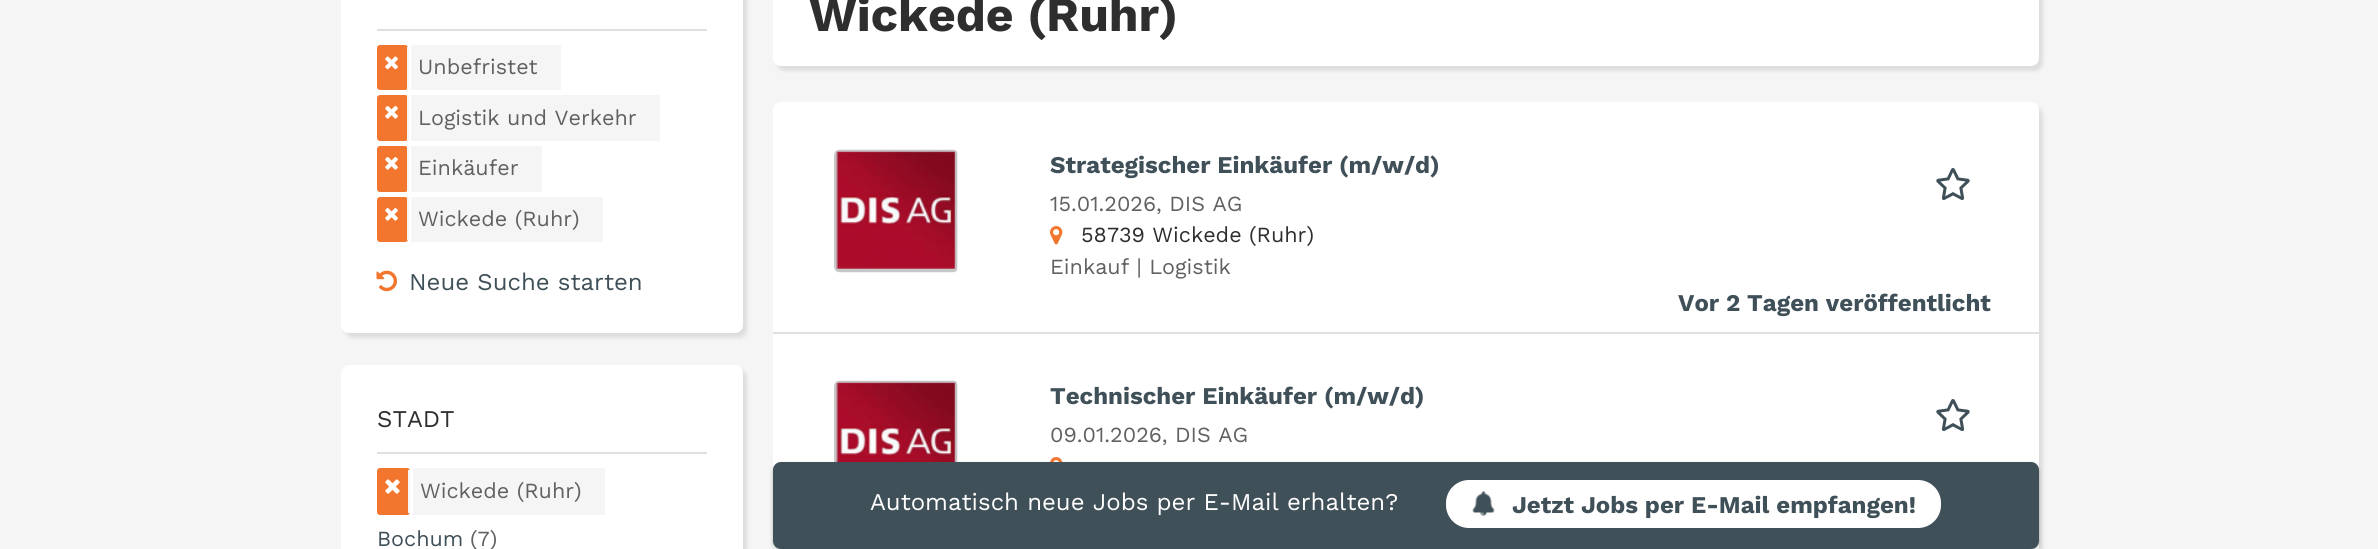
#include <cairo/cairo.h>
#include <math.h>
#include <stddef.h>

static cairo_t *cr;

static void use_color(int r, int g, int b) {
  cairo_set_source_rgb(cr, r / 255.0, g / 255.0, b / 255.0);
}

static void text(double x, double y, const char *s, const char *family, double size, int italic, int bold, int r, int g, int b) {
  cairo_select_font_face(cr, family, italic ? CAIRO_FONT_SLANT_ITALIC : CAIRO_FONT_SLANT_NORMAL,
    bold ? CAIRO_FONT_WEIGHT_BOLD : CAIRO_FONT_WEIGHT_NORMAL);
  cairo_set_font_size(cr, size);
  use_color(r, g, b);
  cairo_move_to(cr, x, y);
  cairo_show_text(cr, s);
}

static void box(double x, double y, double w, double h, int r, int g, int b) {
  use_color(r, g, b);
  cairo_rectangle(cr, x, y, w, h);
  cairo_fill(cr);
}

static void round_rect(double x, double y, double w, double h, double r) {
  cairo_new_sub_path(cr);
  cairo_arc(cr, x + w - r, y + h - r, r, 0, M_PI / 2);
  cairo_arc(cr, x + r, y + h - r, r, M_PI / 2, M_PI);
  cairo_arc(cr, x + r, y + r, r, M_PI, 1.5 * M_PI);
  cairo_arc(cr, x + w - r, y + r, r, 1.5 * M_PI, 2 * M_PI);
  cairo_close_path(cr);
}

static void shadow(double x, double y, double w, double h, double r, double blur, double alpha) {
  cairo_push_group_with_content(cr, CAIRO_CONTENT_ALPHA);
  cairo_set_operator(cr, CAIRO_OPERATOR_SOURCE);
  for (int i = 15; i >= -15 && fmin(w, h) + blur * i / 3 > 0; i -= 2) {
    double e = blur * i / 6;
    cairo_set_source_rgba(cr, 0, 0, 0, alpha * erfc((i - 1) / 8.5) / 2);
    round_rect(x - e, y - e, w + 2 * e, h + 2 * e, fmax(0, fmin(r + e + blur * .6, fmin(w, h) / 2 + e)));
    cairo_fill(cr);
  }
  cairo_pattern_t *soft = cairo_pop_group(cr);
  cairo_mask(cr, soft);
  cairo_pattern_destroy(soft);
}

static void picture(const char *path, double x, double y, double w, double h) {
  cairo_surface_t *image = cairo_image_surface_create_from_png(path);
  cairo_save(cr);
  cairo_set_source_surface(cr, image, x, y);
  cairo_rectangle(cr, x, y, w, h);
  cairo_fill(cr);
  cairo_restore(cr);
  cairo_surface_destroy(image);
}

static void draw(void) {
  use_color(245, 245, 245);
  cairo_paint(cr);
  use_color(0, 0, 0);
  shadow(345, -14, 402, 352, 8, 2, 0.1);
  use_color(255, 255, 255);
  round_rect(341, -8, 402, 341, 8);
  cairo_fill(cr);
  box(377, 29, 330, 2, 224, 224, 224);
  use_color(242, 118, 46);
  round_rect(377, 45, 31, 45, 3);
  cairo_fill(cr);
  box(407, 47, 2, 42, 245, 245, 245);
  picture("img_01.png", 385, 56, 13, 14);
  box(411, 45, 150, 45, 245, 245, 245);
  use_color(242, 118, 46);
  round_rect(377, 95, 31, 46, 3);
  cairo_fill(cr);
  box(407, 96, 2, 44, 245, 245, 245);
  picture("img_02.png", 385, 106, 13, 13);
  box(411, 95, 249, 46, 245, 245, 245);
  use_color(242, 118, 46);
  round_rect(377, 146, 31, 46, 3);
  cairo_fill(cr);
  box(407, 147, 2, 44, 245, 245, 245);
  picture("img_02.png", 385, 157, 13, 13);
  box(411, 146, 131, 46, 245, 245, 245);
  use_color(242, 118, 46);
  round_rect(377, 197, 31, 45, 3);
  cairo_fill(cr);
  box(407, 198, 2, 42, 245, 245, 245);
  picture("img_02.png", 385, 208, 13, 13);
  box(411, 197, 192, 45, 245, 245, 245);
  picture("img_03.png", 376, 270, 22, 22);
  use_color(0, 0, 0);
  shadow(345, 369, 402, 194, 8, 2, 0.1);
  use_color(255, 255, 255);
  round_rect(341, 365, 402, 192, 8);
  cairo_fill(cr);
  box(377, 452, 330, 2, 224, 224, 224);
  use_color(242, 118, 46);
  round_rect(377, 468, 33, 47, 3);
  cairo_fill(cr);
  box(408, 470, 2, 43, 245, 245, 245);
  picture("img_04.png", 385, 479, 15, 15);
  box(413, 468, 192, 47, 245, 245, 245);
  use_color(0, 0, 0);
  shadow(777, -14, 1266, 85, 8, 2, 0.1);
  use_color(255, 255, 255);
  round_rect(773, -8, 1266, 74, 8);
  cairo_fill(cr);
  use_color(0, 0, 0);
  shadow(777, 107, 1266, 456, 8, 2, 0.1);
  use_color(255, 255, 255);
  round_rect(773, 102, 1266, 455, 8);
  cairo_fill(cr);
  picture("img_05.png", 834, 149, 124, 124);
  picture("img_06.png", 1050, 226, 13, 19);
  picture("img_07.png", 1936, 168, 34, 32);
  box(773, 332, 1266, 2, 224, 224, 224);
  picture("img_08.png", 834, 380, 124, 82);
  picture("img_09.png", 1050, 457, 13, 5);
  picture("img_07.png", 1936, 399, 34, 32);
  use_color(0, 0, 0);
  shadow(773, 464, 1266, 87, 8, 2, 0.25);
  use_color(64, 80, 89);
  round_rect(773, 462, 1266, 87, 8);
  cairo_fill(cr);
  use_color(255, 255, 255);
  round_rect(1447, 481, 493, 46, 22);
  cairo_fill_preserve(cr);
  cairo_stroke(cr);
  picture("img_10.png", 1472, 491, 23, 25);
  text(418, 74, "Unbefristet", "Work Sans", 21.6, 0, 0, 97, 97, 97);
  text(418, 125, "Logistik und Verkehr", "Work Sans", 21.6, 0, 0, 97, 97, 97);
  text(418, 175, "Einkäufer", "Work Sans", 21.6, 0, 0, 97, 97, 97);
  text(418, 226, "Wickede (Ruhr)", "Work Sans", 21.6, 0, 0, 97, 97, 97);
  text(409, 290, "Neue Suche starten", "Work Sans", 24, 0, 0, 64, 80, 89);
  text(377, 427, "STADT", "Work Sans", 24, 0, 0, 46, 46, 46);
  text(420, 498, "Wickede (Ruhr)", "Work Sans", 21.6, 0, 0, 97, 97, 97);
  text(377, 546, "Bochum", "Work Sans", 21.6, 0, 0, 64, 80, 89);
  text(470, 546, "(7)", "Work Sans", 21.6, 0, 0, 97, 97, 97);
  text(809, 31, "Wickede (Ruhr)", "Work Sans", 48, 0, 1, 46, 46, 46);
  text(1050, 173, "Strategischer Einkäufer (m/w/d)", "Work Sans", 24, 0, 1, 64, 80, 89);
  text(1050, 211, "15.01.2026, DIS AG", "Work Sans", 21.6, 0, 0, 97, 97, 97);
  text(1081, 242, "58739 Wickede (Ruhr)", "Work Sans", 21.6, 0, 0, 46, 46, 46);
  text(1050, 274, "Einkauf | Logistik", "Work Sans", 21.6, 0, 0, 97, 97, 97);
  text(1678, 311, "Vor 2 Tagen veröffentlicht", "Work Sans", 24, 0, 1, 64, 80, 89);
  text(1050, 404, "Technischer Einkäufer (m/w/d)", "Work Sans", 24, 0, 1, 64, 80, 89);
  text(1050, 442, "09.01.2026, DIS AG", "Work Sans", 21.6, 0, 0, 97, 97, 97);
  text(870, 510, "Automatisch neue Jobs per E-Mail erhalten?", "Work Sans", 24, 0, 0, 255, 255, 255);
  text(1512, 513, "Jetzt Jobs per E-Mail empfangen!", "Work Sans", 24, 0, 1, 64, 80, 89);
}

int main(void) {
  cairo_surface_t *surface = cairo_image_surface_create(CAIRO_FORMAT_RGB24, 2378, 549);
  cr = cairo_create(surface);
  cairo_font_options_t *options = cairo_font_options_create();
  cairo_font_options_set_hint_metrics(options, CAIRO_HINT_METRICS_OFF);
  cairo_font_options_set_hint_style(options, CAIRO_HINT_STYLE_NONE);
  cairo_set_font_options(cr, options);
  cairo_set_miter_limit(cr, 4);
  draw();
  cairo_surface_write_to_png(surface, "out.png");
  cairo_font_options_destroy(options);
  cairo_destroy(cr);
  cairo_surface_destroy(surface);
  return 0;
}
